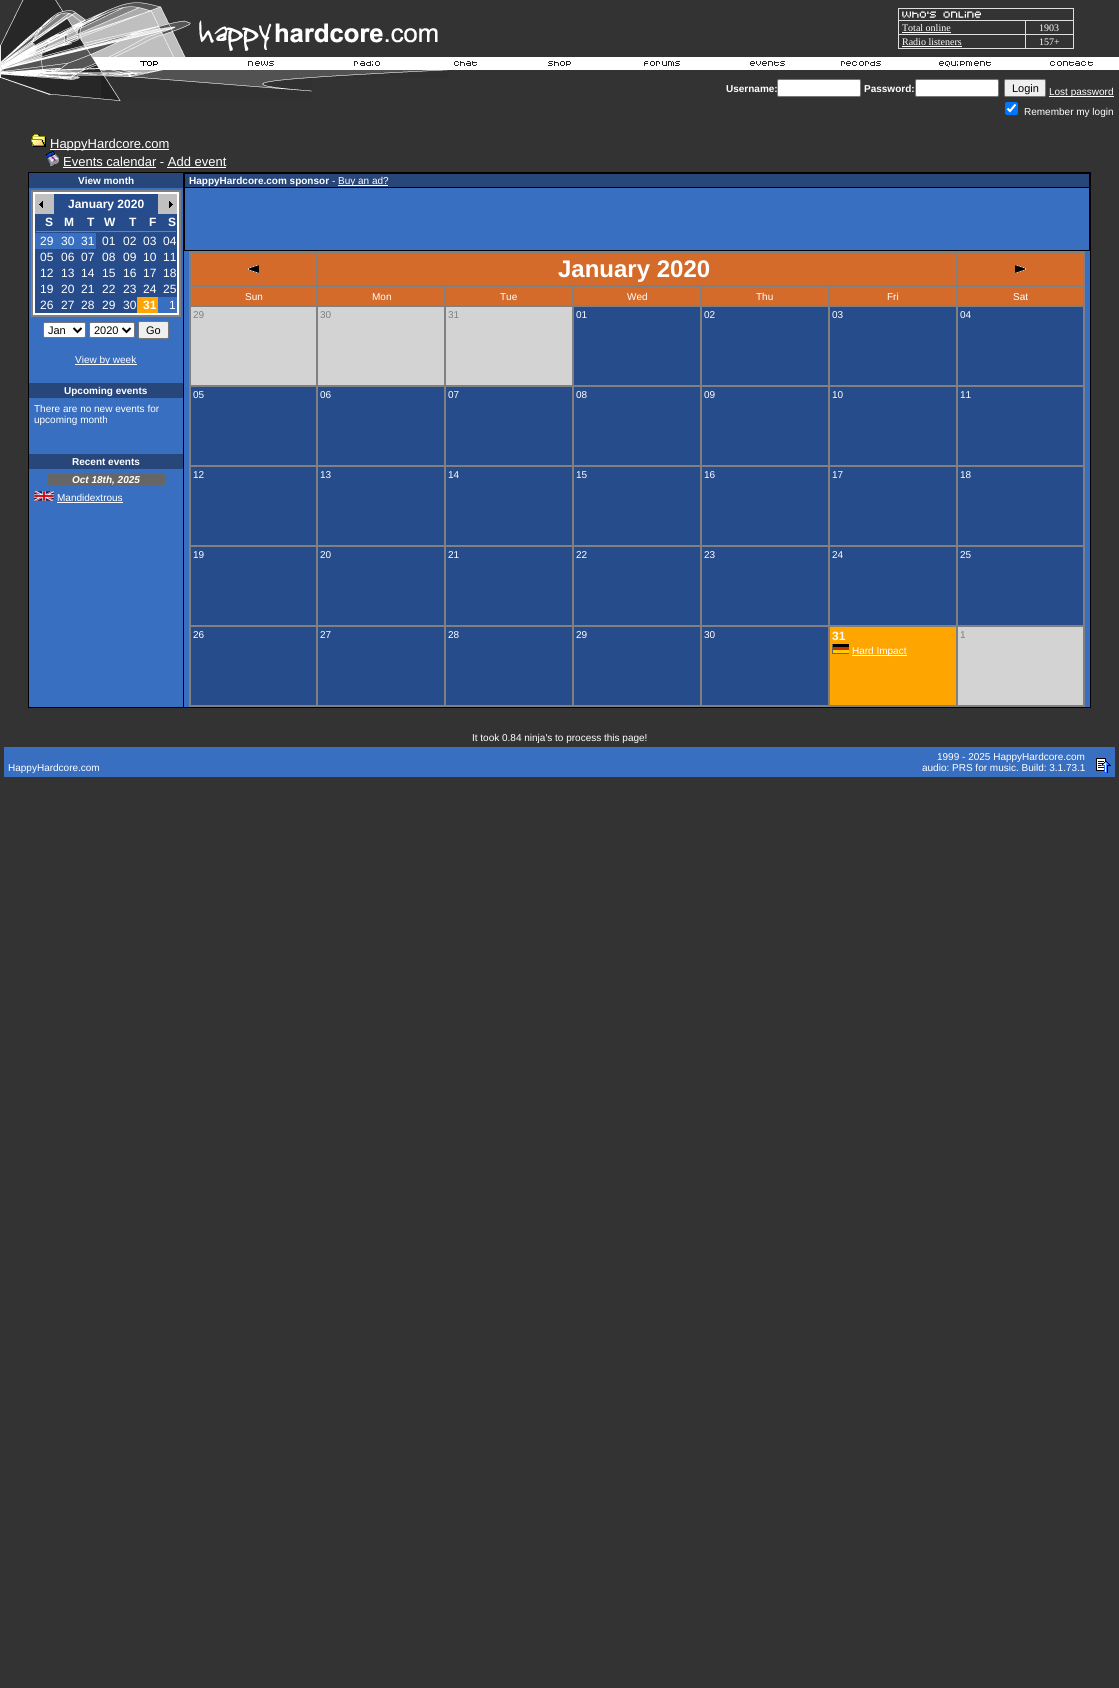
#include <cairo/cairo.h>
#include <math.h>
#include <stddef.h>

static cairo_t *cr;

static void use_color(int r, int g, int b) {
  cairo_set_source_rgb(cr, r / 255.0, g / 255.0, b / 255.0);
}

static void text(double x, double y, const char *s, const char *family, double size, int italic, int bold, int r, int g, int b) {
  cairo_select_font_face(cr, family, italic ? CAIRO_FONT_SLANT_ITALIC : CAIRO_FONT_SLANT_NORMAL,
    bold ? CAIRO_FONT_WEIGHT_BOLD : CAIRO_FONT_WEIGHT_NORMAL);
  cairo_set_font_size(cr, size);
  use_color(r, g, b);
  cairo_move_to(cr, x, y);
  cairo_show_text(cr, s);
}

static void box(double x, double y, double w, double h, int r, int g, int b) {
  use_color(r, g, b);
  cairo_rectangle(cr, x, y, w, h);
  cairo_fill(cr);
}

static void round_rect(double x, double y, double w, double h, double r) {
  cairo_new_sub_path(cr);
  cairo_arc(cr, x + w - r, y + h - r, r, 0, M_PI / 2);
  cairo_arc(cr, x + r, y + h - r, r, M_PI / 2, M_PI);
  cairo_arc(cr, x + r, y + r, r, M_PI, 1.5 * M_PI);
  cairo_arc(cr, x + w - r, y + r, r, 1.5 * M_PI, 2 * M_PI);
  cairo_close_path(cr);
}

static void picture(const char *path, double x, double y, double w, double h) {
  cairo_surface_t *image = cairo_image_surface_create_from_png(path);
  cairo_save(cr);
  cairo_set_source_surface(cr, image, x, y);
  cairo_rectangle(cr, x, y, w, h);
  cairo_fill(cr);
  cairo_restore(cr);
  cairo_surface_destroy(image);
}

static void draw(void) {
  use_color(51, 51, 51);
  cairo_paint(cr);
  picture("img_01.png", 0, 0, 101, 100);
  picture("img_02.png", 101, 2, 337, 55);
  box(898, 8, 176, 41, 223, 223, 223);
  box(899, 9, 174, 11, 51, 51, 51);
  picture("img_03.png", 902, 11, 79, 7);
  box(899, 21, 126, 13, 51, 51, 51);
  box(902, 32, 49, 1, 255, 255, 255);
  box(1026, 21, 47, 13, 51, 51, 51);
  box(899, 35, 126, 13, 51, 51, 51);
  box(902, 46, 60, 1, 255, 255, 255);
  box(1026, 35, 47, 13, 51, 51, 51);
  box(101, 57, 1018, 13, 255, 255, 255);
  picture("img_04.png", 140, 61, 18, 5);
  picture("img_05.png", 248, 61, 26, 5);
  picture("img_06.png", 354, 61, 26, 5);
  picture("img_07.png", 454, 61, 23, 5);
  picture("img_08.png", 548, 61, 23, 5);
  picture("img_09.png", 644, 61, 36, 5);
  picture("img_10.png", 750, 61, 35, 5);
  picture("img_11.png", 841, 61, 40, 5);
  picture("img_12.png", 939, 61, 52, 6);
  picture("img_13.png", 1050, 61, 43, 5);
  picture("img_14.png", 101, 70, 211, 31);
  picture("img_15.png", 312, 70, 136, 8);
  round_rect(777.5, 79.5, 83, 17, 1.5);
  cairo_fill_preserve(cr);
  use_color(118, 118, 118);
  cairo_set_line_width(cr, 1);
  cairo_stroke(cr);
  use_color(255, 255, 255);
  round_rect(915.5, 79.5, 83, 17, 1.5);
  cairo_fill_preserve(cr);
  use_color(118, 118, 118);
  cairo_stroke(cr);
  use_color(239, 239, 239);
  round_rect(1004.5, 79.5, 41, 17, 1.5);
  cairo_fill_preserve(cr);
  use_color(118, 118, 118);
  cairo_stroke(cr);
  box(1049, 96, 65, 1, 255, 255, 255);
  use_color(0, 117, 255);
  round_rect(1005, 102, 13, 13, 2);
  cairo_fill(cr);
  cairo_new_path(cr);
  cairo_move_to(cr, 1007.5, 108.5);
  cairo_line_to(cr, 1010, 111);
  cairo_line_to(cr, 1015.5, 104.5);
  use_color(255, 255, 255);
  cairo_set_line_width(cr, 2.1);
  cairo_stroke(cr);
  picture("img_16.png", 31, 134, 15, 13);
  box(50, 149, 119, 1, 255, 255, 255);
  picture("img_17.png", 46, 151, 13, 15);
  box(63, 167, 93, 1, 255, 255, 255);
  box(167, 167, 59, 1, 255, 255, 255);
  box(28, 172, 1063, 536, 0, 0, 0);
  box(29, 188, 154, 519, 57, 111, 193);
  box(29, 173, 154, 15, 39, 70, 122);
  box(33, 192, 146, 123, 255, 255, 255);
  cairo_rectangle(cr, 31.5, 190.5, 149, 126);
  use_color(128, 128, 128);
  cairo_set_line_width(cr, 1);
  cairo_stroke(cr);
  cairo_rectangle(cr, 32.5, 191.5, 147, 124);
  cairo_stroke(cr);
  box(35, 214, 142, 99, 38, 76, 139);
  box(35, 194, 142, 20, 192, 192, 192);
  picture("img_18.png", 39, 201, 4, 7);
  box(54, 194, 104, 20, 38, 76, 139);
  picture("img_19.png", 169, 201, 4, 7);
  box(36, 231, 140, 1, 128, 128, 128);
  box(35, 233, 61, 16, 57, 111, 193);
  box(137, 297, 21, 16, 255, 165, 0);
  box(158, 297, 19, 16, 57, 111, 193);
  use_color(255, 255, 255);
  round_rect(43.5, 322.5, 42, 15, 1.5);
  cairo_fill_preserve(cr);
  use_color(118, 118, 118);
  cairo_stroke(cr);
  cairo_new_path(cr);
  cairo_move_to(cr, 73.5, 328);
  cairo_line_to(cr, 77.5, 332);
  cairo_line_to(cr, 81.5, 328);
  use_color(0, 0, 0);
  cairo_set_line_width(cr, 2);
  cairo_stroke(cr);
  use_color(255, 255, 255);
  round_rect(89.5, 322.5, 45, 15, 1.5);
  cairo_fill_preserve(cr);
  use_color(118, 118, 118);
  cairo_set_line_width(cr, 1);
  cairo_stroke(cr);
  cairo_new_path(cr);
  cairo_move_to(cr, 122.5, 328);
  cairo_line_to(cr, 126.5, 332);
  cairo_line_to(cr, 130.5, 328);
  use_color(0, 0, 0);
  cairo_set_line_width(cr, 2);
  cairo_stroke(cr);
  use_color(239, 239, 239);
  round_rect(138.5, 321.5, 30, 17, 1.5);
  cairo_fill_preserve(cr);
  use_color(118, 118, 118);
  cairo_set_line_width(cr, 1);
  cairo_stroke(cr);
  box(75, 364, 62, 1, 255, 255, 255);
  box(29, 383, 154, 15, 39, 70, 122);
  box(29, 454, 154, 15, 39, 70, 122);
  box(47, 474, 118, 11, 102, 102, 102);
  picture("img_20.png", 34, 491, 20, 10);
  box(57, 502, 66, 1, 255, 255, 255);
  box(184, 251, 906, 456, 57, 111, 193);
  box(185, 174, 904, 13, 39, 70, 122);
  box(338, 185, 50, 1, 255, 255, 255);
  box(185, 188, 904, 62, 57, 111, 193);
  cairo_rectangle(cr, 189.5, 251.5, 895, 455);
  use_color(128, 128, 128);
  cairo_stroke(cr);
  use_color(212, 107, 42);
  cairo_rectangle(cr, 190.5, 252.5, 126, 33);
  cairo_fill_preserve(cr);
  use_color(128, 128, 128);
  cairo_stroke(cr);
  picture("img_21.png", 248, 265, 11, 8);
  use_color(212, 107, 42);
  cairo_rectangle(cr, 317.5, 252.5, 639, 33);
  cairo_fill_preserve(cr);
  use_color(128, 128, 128);
  cairo_stroke(cr);
  use_color(212, 107, 42);
  cairo_rectangle(cr, 957.5, 252.5, 126, 33);
  cairo_fill_preserve(cr);
  use_color(128, 128, 128);
  cairo_stroke(cr);
  picture("img_22.png", 1015, 265, 11, 8);
  use_color(212, 107, 42);
  cairo_rectangle(cr, 190.5, 286.5, 126, 19);
  cairo_fill_preserve(cr);
  use_color(128, 128, 128);
  cairo_stroke(cr);
  use_color(212, 107, 42);
  cairo_rectangle(cr, 317.5, 286.5, 127, 19);
  cairo_fill_preserve(cr);
  use_color(128, 128, 128);
  cairo_stroke(cr);
  use_color(212, 107, 42);
  cairo_rectangle(cr, 445.5, 286.5, 127, 19);
  cairo_fill_preserve(cr);
  use_color(128, 128, 128);
  cairo_stroke(cr);
  use_color(212, 107, 42);
  cairo_rectangle(cr, 573.5, 286.5, 127, 19);
  cairo_fill_preserve(cr);
  use_color(128, 128, 128);
  cairo_stroke(cr);
  use_color(212, 107, 42);
  cairo_rectangle(cr, 701.5, 286.5, 127, 19);
  cairo_fill_preserve(cr);
  use_color(128, 128, 128);
  cairo_stroke(cr);
  use_color(212, 107, 42);
  cairo_rectangle(cr, 829.5, 286.5, 127, 19);
  cairo_fill_preserve(cr);
  use_color(128, 128, 128);
  cairo_stroke(cr);
  use_color(212, 107, 42);
  cairo_rectangle(cr, 957.5, 286.5, 126, 19);
  cairo_fill_preserve(cr);
  use_color(128, 128, 128);
  cairo_stroke(cr);
  use_color(211, 211, 211);
  cairo_rectangle(cr, 190.5, 306.5, 126, 79);
  cairo_fill_preserve(cr);
  use_color(128, 128, 128);
  cairo_stroke(cr);
  use_color(211, 211, 211);
  cairo_rectangle(cr, 317.5, 306.5, 127, 79);
  cairo_fill_preserve(cr);
  use_color(128, 128, 128);
  cairo_stroke(cr);
  use_color(211, 211, 211);
  cairo_rectangle(cr, 445.5, 306.5, 127, 79);
  cairo_fill_preserve(cr);
  use_color(128, 128, 128);
  cairo_stroke(cr);
  use_color(38, 76, 139);
  cairo_rectangle(cr, 573.5, 306.5, 127, 79);
  cairo_fill_preserve(cr);
  use_color(128, 128, 128);
  cairo_stroke(cr);
  use_color(38, 76, 139);
  cairo_rectangle(cr, 701.5, 306.5, 127, 79);
  cairo_fill_preserve(cr);
  use_color(128, 128, 128);
  cairo_stroke(cr);
  use_color(38, 76, 139);
  cairo_rectangle(cr, 829.5, 306.5, 127, 79);
  cairo_fill_preserve(cr);
  use_color(128, 128, 128);
  cairo_stroke(cr);
  use_color(38, 76, 139);
  cairo_rectangle(cr, 957.5, 306.5, 126, 79);
  cairo_fill_preserve(cr);
  use_color(128, 128, 128);
  cairo_stroke(cr);
  use_color(38, 76, 139);
  cairo_rectangle(cr, 190.5, 386.5, 126, 79);
  cairo_fill_preserve(cr);
  use_color(128, 128, 128);
  cairo_stroke(cr);
  use_color(38, 76, 139);
  cairo_rectangle(cr, 317.5, 386.5, 127, 79);
  cairo_fill_preserve(cr);
  use_color(128, 128, 128);
  cairo_stroke(cr);
  use_color(38, 76, 139);
  cairo_rectangle(cr, 445.5, 386.5, 127, 79);
  cairo_fill_preserve(cr);
  use_color(128, 128, 128);
  cairo_stroke(cr);
  use_color(38, 76, 139);
  cairo_rectangle(cr, 573.5, 386.5, 127, 79);
  cairo_fill_preserve(cr);
  use_color(128, 128, 128);
  cairo_stroke(cr);
  use_color(38, 76, 139);
  cairo_rectangle(cr, 701.5, 386.5, 127, 79);
  cairo_fill_preserve(cr);
  use_color(128, 128, 128);
  cairo_stroke(cr);
  use_color(38, 76, 139);
  cairo_rectangle(cr, 829.5, 386.5, 127, 79);
  cairo_fill_preserve(cr);
  use_color(128, 128, 128);
  cairo_stroke(cr);
  use_color(38, 76, 139);
  cairo_rectangle(cr, 957.5, 386.5, 126, 79);
  cairo_fill_preserve(cr);
  use_color(128, 128, 128);
  cairo_stroke(cr);
  use_color(38, 76, 139);
  cairo_rectangle(cr, 190.5, 466.5, 126, 79);
  cairo_fill_preserve(cr);
  use_color(128, 128, 128);
  cairo_stroke(cr);
  use_color(38, 76, 139);
  cairo_rectangle(cr, 317.5, 466.5, 127, 79);
  cairo_fill_preserve(cr);
  use_color(128, 128, 128);
  cairo_stroke(cr);
  use_color(38, 76, 139);
  cairo_rectangle(cr, 445.5, 466.5, 127, 79);
  cairo_fill_preserve(cr);
  use_color(128, 128, 128);
  cairo_stroke(cr);
  use_color(38, 76, 139);
  cairo_rectangle(cr, 573.5, 466.5, 127, 79);
  cairo_fill_preserve(cr);
  use_color(128, 128, 128);
  cairo_stroke(cr);
  use_color(38, 76, 139);
  cairo_rectangle(cr, 701.5, 466.5, 127, 79);
  cairo_fill_preserve(cr);
  use_color(128, 128, 128);
  cairo_stroke(cr);
  use_color(38, 76, 139);
  cairo_rectangle(cr, 829.5, 466.5, 127, 79);
  cairo_fill_preserve(cr);
  use_color(128, 128, 128);
  cairo_stroke(cr);
  use_color(38, 76, 139);
  cairo_rectangle(cr, 957.5, 466.5, 126, 79);
  cairo_fill_preserve(cr);
  use_color(128, 128, 128);
  cairo_stroke(cr);
  use_color(38, 76, 139);
  cairo_rectangle(cr, 190.5, 546.5, 126, 79);
  cairo_fill_preserve(cr);
  use_color(128, 128, 128);
  cairo_stroke(cr);
  use_color(38, 76, 139);
  cairo_rectangle(cr, 317.5, 546.5, 127, 79);
  cairo_fill_preserve(cr);
  use_color(128, 128, 128);
  cairo_stroke(cr);
  use_color(38, 76, 139);
  cairo_rectangle(cr, 445.5, 546.5, 127, 79);
  cairo_fill_preserve(cr);
  use_color(128, 128, 128);
  cairo_stroke(cr);
  use_color(38, 76, 139);
  cairo_rectangle(cr, 573.5, 546.5, 127, 79);
  cairo_fill_preserve(cr);
  use_color(128, 128, 128);
  cairo_stroke(cr);
  use_color(38, 76, 139);
  cairo_rectangle(cr, 701.5, 546.5, 127, 79);
  cairo_fill_preserve(cr);
  use_color(128, 128, 128);
  cairo_stroke(cr);
  use_color(38, 76, 139);
  cairo_rectangle(cr, 829.5, 546.5, 127, 79);
  cairo_fill_preserve(cr);
  use_color(128, 128, 128);
  cairo_stroke(cr);
  use_color(38, 76, 139);
  cairo_rectangle(cr, 957.5, 546.5, 126, 79);
  cairo_fill_preserve(cr);
  use_color(128, 128, 128);
  cairo_stroke(cr);
  use_color(38, 76, 139);
  cairo_rectangle(cr, 190.5, 626.5, 126, 79);
  cairo_fill_preserve(cr);
  use_color(128, 128, 128);
  cairo_stroke(cr);
  use_color(38, 76, 139);
  cairo_rectangle(cr, 317.5, 626.5, 127, 79);
  cairo_fill_preserve(cr);
  use_color(128, 128, 128);
  cairo_stroke(cr);
  use_color(38, 76, 139);
  cairo_rectangle(cr, 445.5, 626.5, 127, 79);
  cairo_fill_preserve(cr);
  use_color(128, 128, 128);
  cairo_stroke(cr);
  use_color(38, 76, 139);
  cairo_rectangle(cr, 573.5, 626.5, 127, 79);
  cairo_fill_preserve(cr);
  use_color(128, 128, 128);
  cairo_stroke(cr);
  use_color(38, 76, 139);
  cairo_rectangle(cr, 701.5, 626.5, 127, 79);
  cairo_fill_preserve(cr);
  use_color(128, 128, 128);
  cairo_stroke(cr);
  use_color(255, 165, 0);
  cairo_rectangle(cr, 829.5, 626.5, 127, 79);
  cairo_fill_preserve(cr);
  use_color(128, 128, 128);
  cairo_stroke(cr);
  picture("img_23.png", 832, 644, 17, 10);
  box(852, 655, 55, 1, 255, 255, 255);
  use_color(211, 211, 211);
  cairo_rectangle(cr, 957.5, 626.5, 126, 79);
  cairo_fill_preserve(cr);
  use_color(128, 128, 128);
  cairo_stroke(cr);
  box(4, 747, 1111, 30, 57, 111, 193);
  picture("img_24.png", 1096, 758, 15, 15);
  text(902, 31, "Total online", "Liberation Serif", 10, 0, 0, 255, 255, 255);
  text(1039, 31, "1903", "Liberation Serif", 10, 0, 0, 255, 255, 255);
  text(902, 45, "Radio listeners", "Liberation Serif", 10, 0, 0, 255, 255, 255);
  text(1039, 45, "157+", "Liberation Serif", 10, 0, 0, 255, 255, 255);
  text(726, 92, "Username:", "Liberation Sans", 10, 0, 1, 255, 255, 255);
  text(864, 92, "Password:", "Liberation Sans", 10, 0, 1, 255, 255, 255);
  text(1012, 92, "Login", "Liberation Sans", 11, 0, 0, 0, 0, 0);
  text(1049, 95, "Lost password", "Liberation Sans", 10, 0, 0, 255, 255, 255);
  text(1024, 115, "Remember my login", "Liberation Sans", 10, 0, 0, 255, 255, 255);
  text(50, 148, "HappyHardcore.com", "Liberation Sans", 13, 0, 0, 255, 255, 255);
  text(63, 166, "Events calendar - Add event", "Liberation Sans", 13, 0, 0, 255, 255, 255);
  text(78, 184, "View month", "Liberation Sans", 10, 0, 1, 255, 255, 255);
  text(68, 208, "January 2020", "Liberation Sans", 12, 0, 1, 255, 255, 255);
  text(45, 226, "S", "Liberation Sans", 12, 0, 1, 255, 255, 255);
  text(64, 226, "M", "Liberation Sans", 12, 0, 1, 255, 255, 255);
  text(87, 226, "T", "Liberation Sans", 12, 0, 1, 255, 255, 255);
  text(104, 226, "W", "Liberation Sans", 12, 0, 1, 255, 255, 255);
  text(129, 226, "T", "Liberation Sans", 12, 0, 1, 255, 255, 255);
  text(149, 226, "F", "Liberation Sans", 12, 0, 1, 255, 255, 255);
  text(168, 226, "S", "Liberation Sans", 12, 0, 1, 255, 255, 255);
  text(40, 245, "29", "Liberation Sans", 12, 0, 0, 255, 255, 255);
  text(61, 245, "30", "Liberation Sans", 12, 0, 0, 255, 255, 255);
  text(81, 245, "31", "Liberation Sans", 12, 0, 0, 255, 255, 255);
  text(102, 245, "01", "Liberation Sans", 12, 0, 0, 255, 255, 255);
  text(123, 245, "02", "Liberation Sans", 12, 0, 0, 255, 255, 255);
  text(143, 245, "03", "Liberation Sans", 12, 0, 0, 255, 255, 255);
  text(163, 245, "04", "Liberation Sans", 12, 0, 0, 255, 255, 255);
  text(40, 261, "05", "Liberation Sans", 12, 0, 0, 255, 255, 255);
  text(61, 261, "06", "Liberation Sans", 12, 0, 0, 255, 255, 255);
  text(81, 261, "07", "Liberation Sans", 12, 0, 0, 255, 255, 255);
  text(102, 261, "08", "Liberation Sans", 12, 0, 0, 255, 255, 255);
  text(123, 261, "09", "Liberation Sans", 12, 0, 0, 255, 255, 255);
  text(143, 261, "10", "Liberation Sans", 12, 0, 0, 255, 255, 255);
  text(163, 261, "11", "Liberation Sans", 12, 0, 0, 255, 255, 255);
  text(40, 277, "12", "Liberation Sans", 12, 0, 0, 255, 255, 255);
  text(61, 277, "13", "Liberation Sans", 12, 0, 0, 255, 255, 255);
  text(81, 277, "14", "Liberation Sans", 12, 0, 0, 255, 255, 255);
  text(102, 277, "15", "Liberation Sans", 12, 0, 0, 255, 255, 255);
  text(123, 277, "16", "Liberation Sans", 12, 0, 0, 255, 255, 255);
  text(143, 277, "17", "Liberation Sans", 12, 0, 0, 255, 255, 255);
  text(163, 277, "18", "Liberation Sans", 12, 0, 0, 255, 255, 255);
  text(40, 293, "19", "Liberation Sans", 12, 0, 0, 255, 255, 255);
  text(61, 293, "20", "Liberation Sans", 12, 0, 0, 255, 255, 255);
  text(81, 293, "21", "Liberation Sans", 12, 0, 0, 255, 255, 255);
  text(102, 293, "22", "Liberation Sans", 12, 0, 0, 255, 255, 255);
  text(123, 293, "23", "Liberation Sans", 12, 0, 0, 255, 255, 255);
  text(143, 293, "24", "Liberation Sans", 12, 0, 0, 255, 255, 255);
  text(163, 293, "25", "Liberation Sans", 12, 0, 0, 255, 255, 255);
  text(40, 309, "26", "Liberation Sans", 12, 0, 0, 255, 255, 255);
  text(61, 309, "27", "Liberation Sans", 12, 0, 0, 255, 255, 255);
  text(81, 309, "28", "Liberation Sans", 12, 0, 0, 255, 255, 255);
  text(102, 309, "29", "Liberation Sans", 12, 0, 0, 255, 255, 255);
  text(123, 309, "30", "Liberation Sans", 12, 0, 0, 255, 255, 255);
  text(143, 309, "31", "Liberation Sans", 12, 0, 1, 255, 255, 255);
  text(169, 309, "1", "Liberation Sans", 12, 0, 0, 255, 255, 255);
  text(48, 334, "Jan", "Liberation Sans", 11, 0, 0, 0, 0, 0);
  text(94, 334, "2020", "Liberation Sans", 11, 0, 0, 0, 0, 0);
  text(146, 334, "Go", "Liberation Sans", 11, 0, 0, 0, 0, 0);
  text(75, 363, "View by week", "Liberation Sans", 10, 0, 0, 255, 255, 255);
  text(64, 394, "Upcoming events", "Liberation Sans", 10, 0, 1, 255, 255, 255);
  text(34, 412, "There are no new events for", "Liberation Sans", 10, 0, 0, 255, 255, 255);
  text(34, 423, "upcoming month", "Liberation Sans", 10, 0, 0, 255, 255, 255);
  text(72, 465, "Recent events", "Liberation Sans", 10, 0, 1, 255, 255, 255);
  text(72, 483, "Oct 18th, 2025", "Liberation Sans", 10, 1, 1, 255, 255, 255);
  text(57, 501, "Mandidextrous", "Liberation Sans", 10, 0, 0, 255, 255, 255);
  text(189, 184, "HappyHardcore.com sponsor", "Liberation Sans", 10, 0, 1, 255, 255, 255);
  text(332, 184, "-", "Liberation Sans", 10, 0, 0, 255, 255, 255);
  text(338, 184, "Buy an ad?", "Liberation Sans", 10, 0, 0, 255, 255, 255);
  text(558, 277, "January 2020", "Liberation Sans", 24, 0, 1, 255, 255, 255);
  text(245, 300, "Sun", "Liberation Sans", 10, 0, 0, 255, 255, 255);
  text(372, 300, "Mon", "Liberation Sans", 10, 0, 0, 255, 255, 255);
  text(500, 300, "Tue", "Liberation Sans", 10, 0, 0, 255, 255, 255);
  text(627, 300, "Wed", "Liberation Sans", 10, 0, 0, 255, 255, 255);
  text(756, 300, "Thu", "Liberation Sans", 10, 0, 0, 255, 255, 255);
  text(887, 300, "Fri", "Liberation Sans", 10, 0, 0, 255, 255, 255);
  text(1013, 300, "Sat", "Liberation Sans", 10, 0, 0, 255, 255, 255);
  text(193, 318, "29", "Liberation Sans", 10, 0, 0, 128, 128, 128);
  text(320, 318, "30", "Liberation Sans", 10, 0, 0, 128, 128, 128);
  text(448, 318, "31", "Liberation Sans", 10, 0, 0, 128, 128, 128);
  text(576, 318, "01", "Liberation Sans", 10, 0, 0, 255, 255, 255);
  text(704, 318, "02", "Liberation Sans", 10, 0, 0, 255, 255, 255);
  text(832, 318, "03", "Liberation Sans", 10, 0, 0, 255, 255, 255);
  text(960, 318, "04", "Liberation Sans", 10, 0, 0, 255, 255, 255);
  text(193, 398, "05", "Liberation Sans", 10, 0, 0, 255, 255, 255);
  text(320, 398, "06", "Liberation Sans", 10, 0, 0, 255, 255, 255);
  text(448, 398, "07", "Liberation Sans", 10, 0, 0, 255, 255, 255);
  text(576, 398, "08", "Liberation Sans", 10, 0, 0, 255, 255, 255);
  text(704, 398, "09", "Liberation Sans", 10, 0, 0, 255, 255, 255);
  text(832, 398, "10", "Liberation Sans", 10, 0, 0, 255, 255, 255);
  text(960, 398, "11", "Liberation Sans", 10, 0, 0, 255, 255, 255);
  text(193, 478, "12", "Liberation Sans", 10, 0, 0, 255, 255, 255);
  text(320, 478, "13", "Liberation Sans", 10, 0, 0, 255, 255, 255);
  text(448, 478, "14", "Liberation Sans", 10, 0, 0, 255, 255, 255);
  text(576, 478, "15", "Liberation Sans", 10, 0, 0, 255, 255, 255);
  text(704, 478, "16", "Liberation Sans", 10, 0, 0, 255, 255, 255);
  text(832, 478, "17", "Liberation Sans", 10, 0, 0, 255, 255, 255);
  text(960, 478, "18", "Liberation Sans", 10, 0, 0, 255, 255, 255);
  text(193, 558, "19", "Liberation Sans", 10, 0, 0, 255, 255, 255);
  text(320, 558, "20", "Liberation Sans", 10, 0, 0, 255, 255, 255);
  text(448, 558, "21", "Liberation Sans", 10, 0, 0, 255, 255, 255);
  text(576, 558, "22", "Liberation Sans", 10, 0, 0, 255, 255, 255);
  text(704, 558, "23", "Liberation Sans", 10, 0, 0, 255, 255, 255);
  text(832, 558, "24", "Liberation Sans", 10, 0, 0, 255, 255, 255);
  text(960, 558, "25", "Liberation Sans", 10, 0, 0, 255, 255, 255);
  text(193, 638, "26", "Liberation Sans", 10, 0, 0, 255, 255, 255);
  text(320, 638, "27", "Liberation Sans", 10, 0, 0, 255, 255, 255);
  text(448, 638, "28", "Liberation Sans", 10, 0, 0, 255, 255, 255);
  text(576, 638, "29", "Liberation Sans", 10, 0, 0, 255, 255, 255);
  text(704, 638, "30", "Liberation Sans", 10, 0, 0, 255, 255, 255);
  text(832, 640, "31", "Liberation Sans", 12, 0, 1, 255, 255, 255);
  text(852, 654, "Hard Impact", "Liberation Sans", 10, 0, 0, 255, 255, 255);
  text(960, 638, "1", "Liberation Sans", 10, 0, 0, 128, 128, 128);
  text(472, 741, "It took 0.84 ninja's to process this page!", "Liberation Sans", 10, 0, 0, 255, 255, 255);
  text(8, 771, "HappyHardcore.com", "Liberation Sans", 10, 0, 0, 255, 255, 255);
  text(937, 760, "1999 - 2025 HappyHardcore.com", "Liberation Sans", 10, 0, 0, 255, 255, 255);
  text(922, 771, "audio: PRS for music. Build: 3.1.73.1", "Liberation Sans", 10, 0, 0, 255, 255, 255);
}

int main(void) {
  cairo_surface_t *surface = cairo_image_surface_create(CAIRO_FORMAT_RGB24, 1119, 1688);
  cr = cairo_create(surface);
  cairo_font_options_t *options = cairo_font_options_create();
  cairo_font_options_set_hint_metrics(options, CAIRO_HINT_METRICS_OFF);
  cairo_font_options_set_hint_style(options, CAIRO_HINT_STYLE_NONE);
  cairo_set_font_options(cr, options);
  cairo_set_miter_limit(cr, 4);
  draw();
  cairo_surface_write_to_png(surface, "out.png");
  cairo_font_options_destroy(options);
  cairo_destroy(cr);
  cairo_surface_destroy(surface);
  return 0;
}
